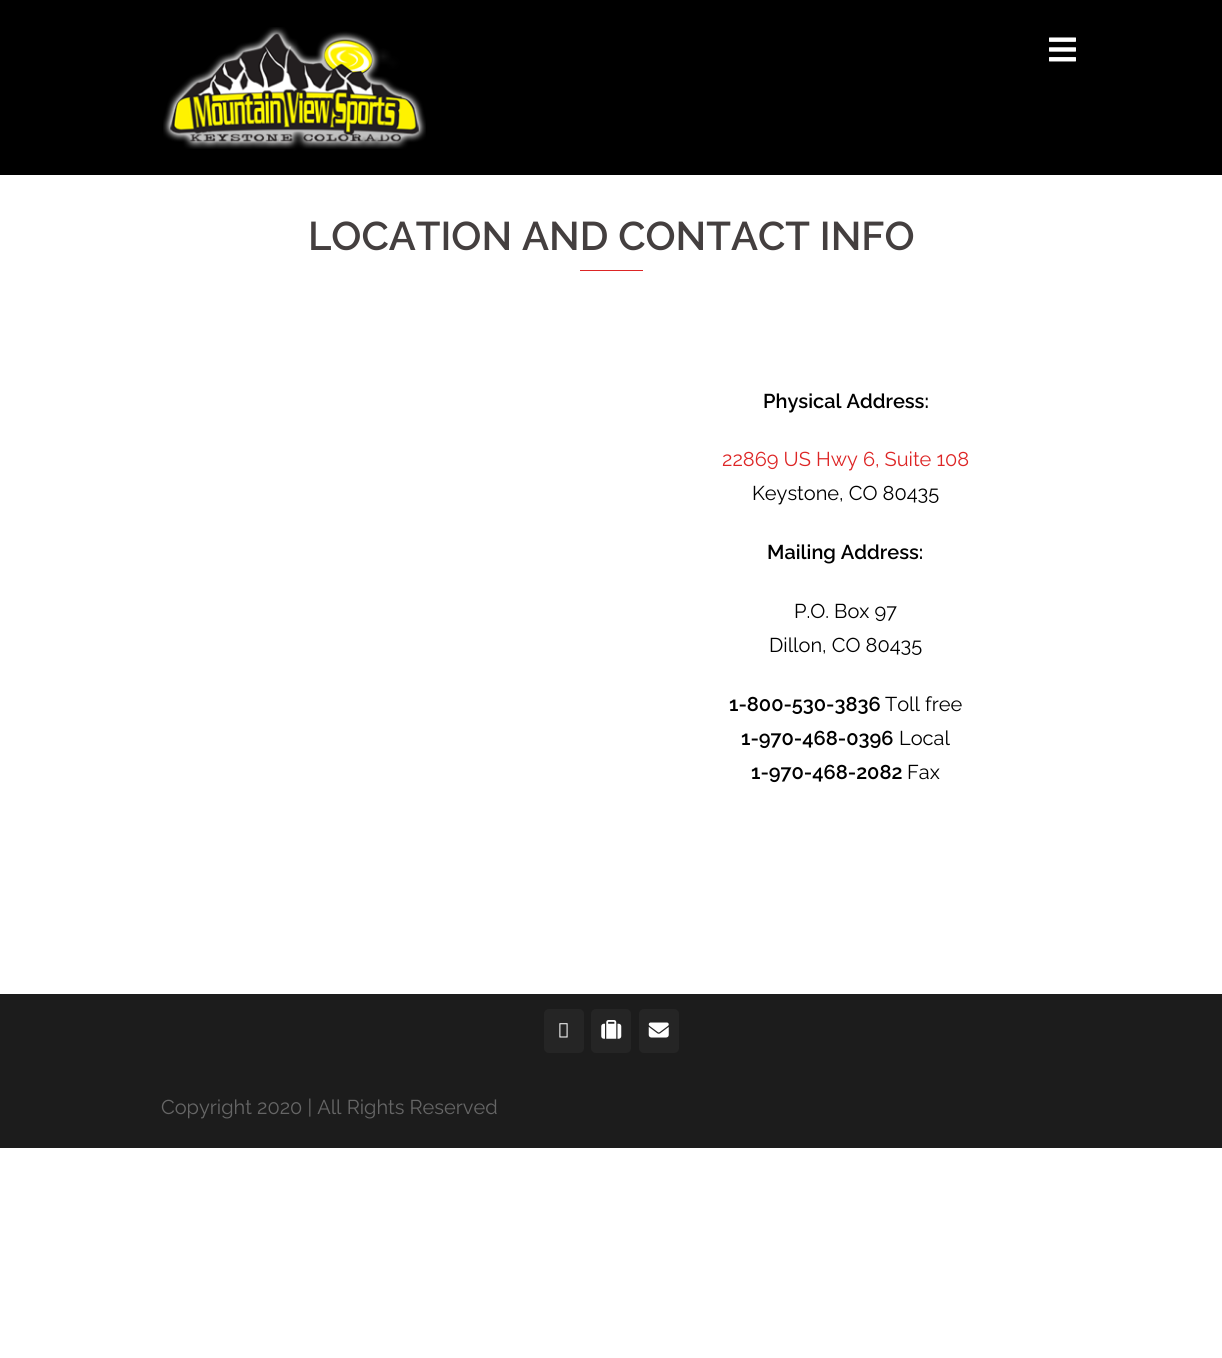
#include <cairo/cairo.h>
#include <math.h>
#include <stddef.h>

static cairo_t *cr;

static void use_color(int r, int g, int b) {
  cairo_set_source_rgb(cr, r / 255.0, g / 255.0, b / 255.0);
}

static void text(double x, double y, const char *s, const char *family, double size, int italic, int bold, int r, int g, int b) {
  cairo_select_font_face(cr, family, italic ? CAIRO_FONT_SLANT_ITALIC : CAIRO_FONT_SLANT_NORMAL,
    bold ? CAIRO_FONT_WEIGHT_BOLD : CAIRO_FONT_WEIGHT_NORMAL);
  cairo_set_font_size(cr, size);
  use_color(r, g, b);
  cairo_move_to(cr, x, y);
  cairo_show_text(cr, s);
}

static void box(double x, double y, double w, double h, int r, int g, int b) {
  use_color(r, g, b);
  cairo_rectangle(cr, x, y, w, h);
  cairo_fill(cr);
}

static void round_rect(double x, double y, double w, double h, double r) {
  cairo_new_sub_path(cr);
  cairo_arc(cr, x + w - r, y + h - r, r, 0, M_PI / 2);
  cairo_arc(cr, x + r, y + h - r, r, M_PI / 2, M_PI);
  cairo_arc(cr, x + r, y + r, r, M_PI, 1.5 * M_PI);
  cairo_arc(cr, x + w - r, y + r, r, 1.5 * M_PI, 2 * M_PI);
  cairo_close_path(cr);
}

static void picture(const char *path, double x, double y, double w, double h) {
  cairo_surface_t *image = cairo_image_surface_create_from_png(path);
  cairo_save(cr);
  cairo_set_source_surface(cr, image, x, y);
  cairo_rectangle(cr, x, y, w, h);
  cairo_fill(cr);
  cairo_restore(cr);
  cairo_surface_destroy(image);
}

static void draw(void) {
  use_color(255, 255, 255);
  cairo_paint(cr);
  box(0, 0, 1222, 175, 0, 0, 0);
  picture("img_01.png", 163, 27, 263, 122);
  picture("img_02.png", 1049, 37, 27, 25);
  box(580, 270, 63, 1, 221, 37, 37);
  box(0, 994, 1222, 154, 28, 28, 28);
  use_color(37, 37, 37);
  round_rect(544, 1009, 40, 44, 5);
  cairo_fill(cr);
  picture("img_03.png", 559, 1023, 9, 15);
  round_rect(591, 1009, 40, 44, 5);
  cairo_fill(cr);
  picture("img_04.png", 601, 1020, 21, 19);
  round_rect(639, 1009, 40, 44, 5);
  cairo_fill(cr);
  picture("img_05.png", 648, 1022, 21, 16);
  text(308, 250, "LOCATION AND CONTACT INFO", "Raleway SemiBold", 40, 0, 0, 68, 63, 63);
  text(763, 408, "Physical Address:", "Raleway SemiBold", 20, 0, 0, 0, 0, 0);
  text(722, 466, "22869 US Hwy 6, Suite 108", "Raleway", 20, 0, 0, 221, 37, 37);
  text(752, 500, "Keystone, CO 80435", "Raleway", 20, 0, 0, 0, 0, 0);
  text(767, 559, "Mailing Address:", "Raleway SemiBold", 20, 0, 0, 0, 0, 0);
  text(794, 618, "P.O. Box 97", "Raleway", 20, 0, 0, 0, 0, 0);
  text(769, 652, "Dillon, CO 80435", "Raleway", 20, 0, 0, 0, 0, 0);
  text(729, 711, "1-800-530-3836", "Raleway SemiBold", 20, 0, 0, 0, 0, 0);
  text(885, 711, "Toll free", "Raleway", 20, 0, 0, 0, 0, 0);
  text(741, 745, "1-970-468-0396", "Raleway SemiBold", 20, 0, 0, 0, 0, 0);
  text(899, 745, "Local", "Raleway", 20, 0, 0, 0, 0, 0);
  text(751, 779, "1-970-468-2082", "Raleway SemiBold", 20, 0, 0, 0, 0, 0);
  text(907, 779, "Fax", "Raleway", 20, 0, 0, 0, 0, 0);
  text(161, 1114, "Copyright 2020 | All Rights Reserved", "Raleway", 20, 0, 0, 102, 102, 102);
}

int main(void) {
  cairo_surface_t *surface = cairo_image_surface_create(CAIRO_FORMAT_RGB24, 1222, 1358);
  cr = cairo_create(surface);
  cairo_font_options_t *options = cairo_font_options_create();
  cairo_font_options_set_hint_metrics(options, CAIRO_HINT_METRICS_OFF);
  cairo_font_options_set_hint_style(options, CAIRO_HINT_STYLE_NONE);
  cairo_set_font_options(cr, options);
  cairo_set_miter_limit(cr, 4);
  draw();
  cairo_surface_write_to_png(surface, "out.png");
  cairo_font_options_destroy(options);
  cairo_destroy(cr);
  cairo_surface_destroy(surface);
  return 0;
}
